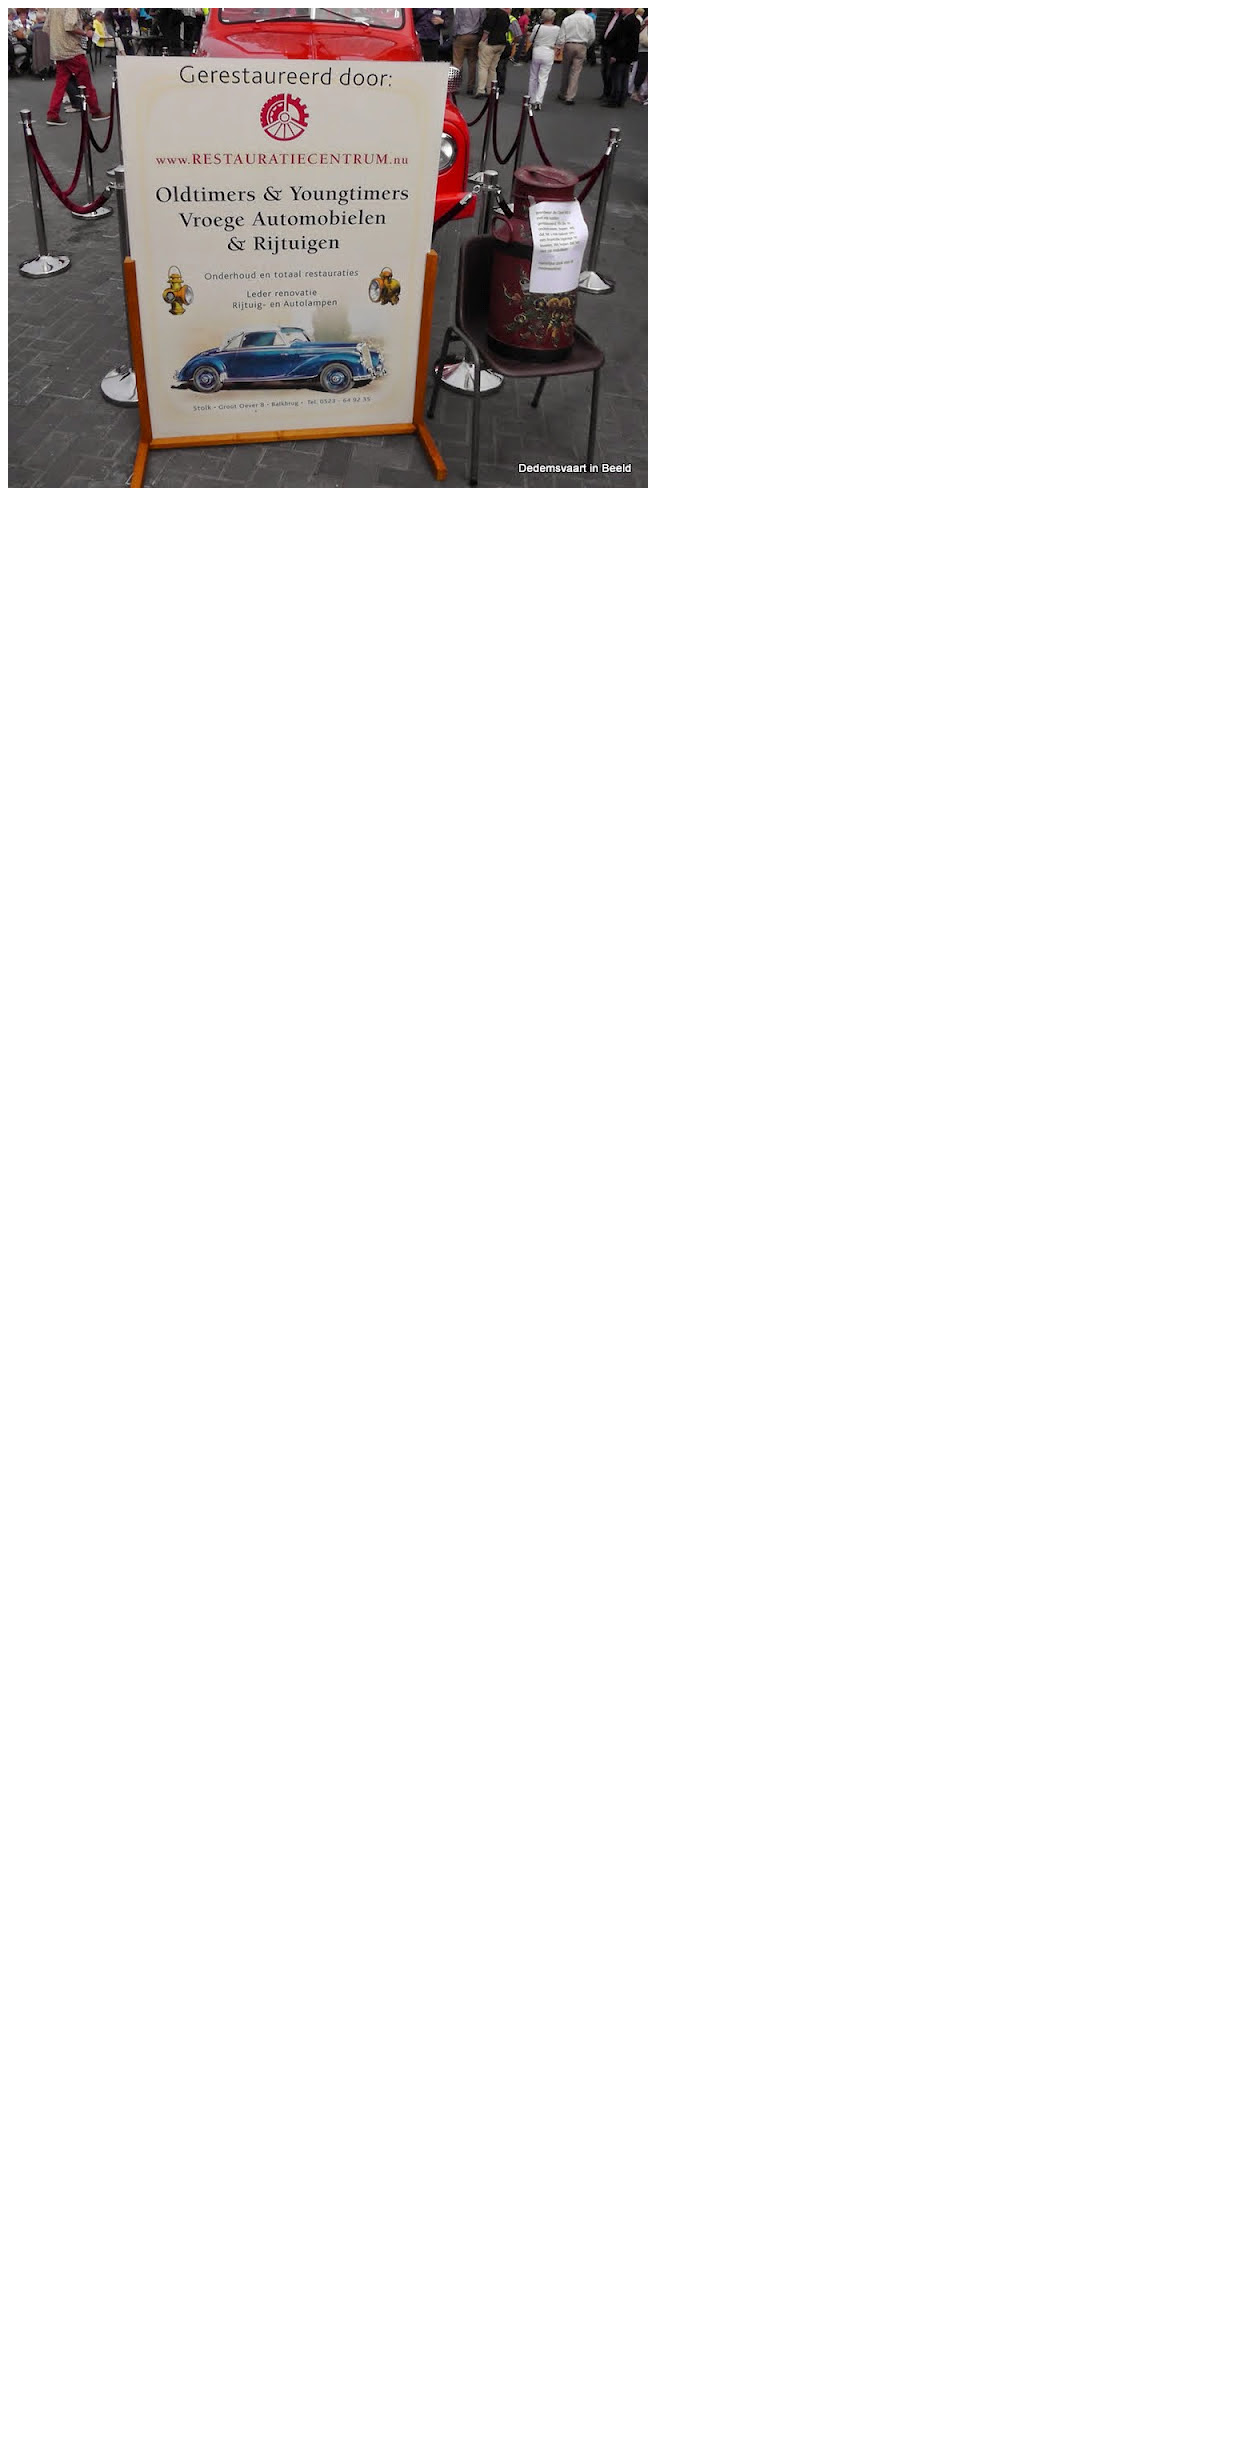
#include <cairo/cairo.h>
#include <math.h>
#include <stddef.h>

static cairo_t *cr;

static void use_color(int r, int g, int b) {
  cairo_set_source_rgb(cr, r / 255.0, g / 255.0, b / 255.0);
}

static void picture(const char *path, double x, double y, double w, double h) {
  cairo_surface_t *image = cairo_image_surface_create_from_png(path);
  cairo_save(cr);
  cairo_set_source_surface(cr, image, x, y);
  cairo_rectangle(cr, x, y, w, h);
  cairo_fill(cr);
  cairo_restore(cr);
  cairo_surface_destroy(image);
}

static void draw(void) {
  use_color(255, 255, 255);
  cairo_paint(cr);
  picture("img_01.png", 8, 8, 640, 480);
}

int main(void) {
  cairo_surface_t *surface = cairo_image_surface_create(CAIRO_FORMAT_RGB24, 1254, 2441);
  cr = cairo_create(surface);
  cairo_font_options_t *options = cairo_font_options_create();
  cairo_font_options_set_hint_metrics(options, CAIRO_HINT_METRICS_OFF);
  cairo_font_options_set_hint_style(options, CAIRO_HINT_STYLE_NONE);
  cairo_set_font_options(cr, options);
  cairo_set_miter_limit(cr, 4);
  draw();
  cairo_surface_write_to_png(surface, "out.png");
  cairo_font_options_destroy(options);
  cairo_destroy(cr);
  cairo_surface_destroy(surface);
  return 0;
}
